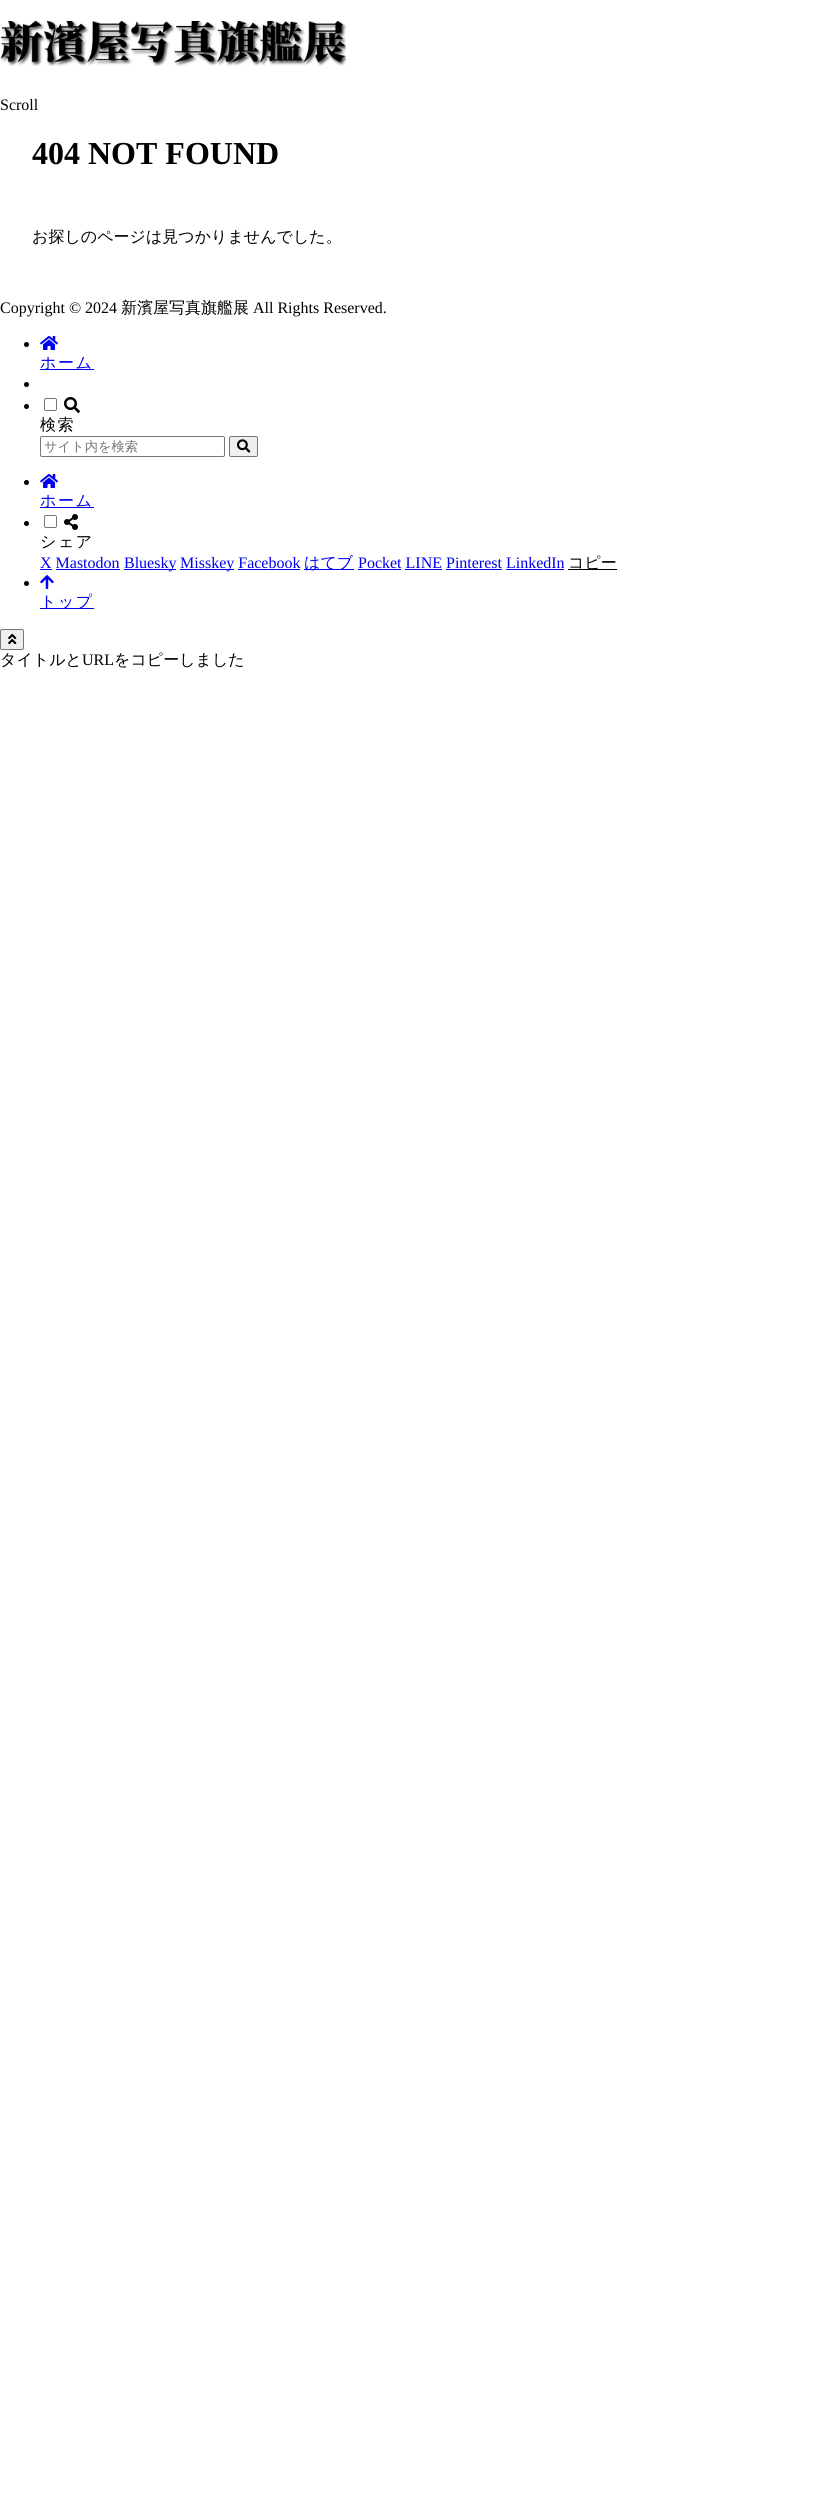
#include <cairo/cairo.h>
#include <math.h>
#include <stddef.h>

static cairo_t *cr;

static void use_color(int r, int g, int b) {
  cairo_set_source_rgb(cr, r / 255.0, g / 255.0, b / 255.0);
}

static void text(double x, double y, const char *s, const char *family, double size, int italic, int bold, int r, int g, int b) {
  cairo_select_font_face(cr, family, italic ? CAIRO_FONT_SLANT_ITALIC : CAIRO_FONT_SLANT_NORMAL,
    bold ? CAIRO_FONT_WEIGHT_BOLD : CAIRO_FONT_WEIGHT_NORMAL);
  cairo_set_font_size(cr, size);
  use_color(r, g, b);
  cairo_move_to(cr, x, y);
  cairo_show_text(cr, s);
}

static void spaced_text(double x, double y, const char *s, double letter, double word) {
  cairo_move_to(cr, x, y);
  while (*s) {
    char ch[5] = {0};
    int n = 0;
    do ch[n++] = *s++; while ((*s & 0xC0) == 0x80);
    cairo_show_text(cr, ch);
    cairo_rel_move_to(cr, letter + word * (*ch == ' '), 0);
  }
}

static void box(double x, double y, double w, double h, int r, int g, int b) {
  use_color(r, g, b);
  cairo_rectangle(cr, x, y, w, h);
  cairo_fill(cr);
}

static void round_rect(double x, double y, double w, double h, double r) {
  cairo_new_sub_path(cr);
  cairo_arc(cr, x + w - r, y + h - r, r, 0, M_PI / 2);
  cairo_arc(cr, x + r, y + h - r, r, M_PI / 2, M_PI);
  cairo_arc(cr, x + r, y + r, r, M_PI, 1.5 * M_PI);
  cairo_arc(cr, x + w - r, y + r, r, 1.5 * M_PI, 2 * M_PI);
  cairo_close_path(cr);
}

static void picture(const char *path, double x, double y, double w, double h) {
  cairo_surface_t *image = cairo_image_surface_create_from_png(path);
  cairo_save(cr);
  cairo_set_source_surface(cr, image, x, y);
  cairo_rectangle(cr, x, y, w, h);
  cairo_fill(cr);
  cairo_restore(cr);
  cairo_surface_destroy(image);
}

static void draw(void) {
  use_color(255, 255, 255);
  cairo_paint(cr);
  picture("img_01.png", 0, 21, 346, 45);
  use_color(0, 0, 0);
  cairo_arc(cr, 26.5, 344.5, 2.5, 0, 2 * M_PI);
  cairo_fill(cr);
  picture("img_02.png", 40, 336, 18, 14);
  box(40, 369, 54, 1, 0, 0, 238);
  use_color(0, 0, 0);
  cairo_arc(cr, 26.5, 384.5, 2.5, 0, 2 * M_PI);
  cairo_fill(cr);
  cairo_arc(cr, 26.5, 406.5, 2.5, 0, 2 * M_PI);
  cairo_fill(cr);
  round_rect(44.5, 398.5, 12, 12, 1.5);
  use_color(118, 118, 118);
  cairo_set_line_width(cr, 1);
  cairo_stroke(cr);
  picture("img_03.png", 64, 397, 16, 16);
  round_rect(40.5, 436.5, 184, 20, 1.5);
  cairo_stroke(cr);
  use_color(239, 239, 239);
  round_rect(229.5, 436.5, 28, 20, 1.5);
  cairo_fill_preserve(cr);
  use_color(118, 118, 118);
  cairo_stroke(cr);
  picture("img_04.png", 237, 439, 14, 14);
  use_color(0, 0, 0);
  cairo_arc(cr, 26.5, 482.5, 2.5, 0, 2 * M_PI);
  cairo_fill(cr);
  picture("img_02.png", 40, 474, 18, 14);
  box(40, 507, 54, 1, 0, 0, 238);
  use_color(0, 0, 0);
  cairo_arc(cr, 26.5, 523.5, 2.5, 0, 2 * M_PI);
  cairo_fill(cr);
  round_rect(44.5, 515.5, 12, 12, 1.5);
  use_color(118, 118, 118);
  cairo_stroke(cr);
  picture("img_05.png", 64, 514, 14, 16);
  box(40, 569, 12, 1, 0, 0, 238);
  box(124, 569, 52, 1, 0, 0, 238);
  box(180, 569, 54, 1, 0, 0, 238);
  box(304, 569, 50, 1, 0, 0, 238);
  box(358, 569, 43, 1, 0, 0, 238);
  box(568, 569, 49, 1, 0, 0, 0);
  box(56, 569, 64, 1, 0, 0, 238);
  box(238, 569, 62, 1, 0, 0, 238);
  box(405, 569, 37, 1, 0, 0, 238);
  box(446, 569, 56, 1, 0, 0, 238);
  box(506, 569, 58, 1, 0, 0, 238);
  use_color(0, 0, 0);
  cairo_arc(cr, 26.5, 583.5, 2.5, 0, 2 * M_PI);
  cairo_fill(cr);
  picture("img_06.png", 40, 575, 14, 14);
  box(40, 608, 54, 1, 0, 0, 238);
  use_color(239, 239, 239);
  round_rect(0.5, 629.5, 23, 20, 1.5);
  cairo_fill_preserve(cr);
  use_color(118, 118, 118);
  cairo_stroke(cr);
  picture("img_07.png", 8, 633, 9, 12);
  text(0, 110, "Scroll", "Liberation Serif", 16, 0, 0, 0, 0, 0);
  text(32, 164, "404 NOT FOUND", "Liberation Serif", 32, 0, 1, 0, 0, 0);
  text(32, 242, "お探しのページは見つかりませんでした。", "WenQuanYi Zen Hei Medium", 16, 0, 0, 0, 0, 0);
  text(0, 313, "Copyright © 2024", "Liberation Serif", 16, 0, 0, 0, 0, 0);
  text(121, 313, "新濱屋写真旗艦展", "WenQuanYi Zen Hei Medium", 16, 0, 0, 0, 0, 0);
  text(253, 313, "All Rights Reserved.", "Liberation Serif", 16, 0, 0, 0, 0, 0);
  cairo_select_font_face(cr, "WenQuanYi Zen Hei Medium", CAIRO_FONT_SLANT_NORMAL, CAIRO_FONT_WEIGHT_NORMAL);
  use_color(0, 0, 238);
  spaced_text(40, 368, "ホーム", 1.5, 0);
  use_color(0, 0, 0);
  spaced_text(40, 430, "検索", 1.5, 0);
  text(44, 451, "サイト内を検索", "WenQuanYi Zen Hei Medium", 13.25, 0, 0, 117, 117, 117);
  cairo_set_font_size(cr, 16);
  use_color(0, 0, 238);
  spaced_text(40, 506, "ホーム", 1.5, 0);
  use_color(0, 0, 0);
  spaced_text(40, 547, "シェア", 1.5, 0);
  text(40, 568, "X Mastodon", "Liberation Serif", 16, 0, 0, 0, 0, 238);
  text(124, 568, "Bluesky", "Liberation Serif", 16, 0, 0, 0, 0, 238);
  text(180, 568, "Misskey Facebook", "Liberation Serif", 16, 0, 0, 0, 0, 238);
  text(304, 568, "はてブ", "WenQuanYi Zen Hei Medium", 16, 0, 0, 0, 0, 238);
  text(358, 568, "Pocket LINE Pinterest LinkedIn", "Liberation Serif", 16, 0, 0, 0, 0, 238);
  text(568, 568, "コピー", "WenQuanYi Zen Hei Medium", 16, 0, 0, 0, 0, 0);
  use_color(0, 0, 238);
  spaced_text(40, 607, "トップ", 1.5, 0);
  text(0, 665, "タイトルと", "WenQuanYi Zen Hei Medium", 16, 0, 0, 0, 0, 0);
  text(82, 665, "URL", "Liberation Serif", 16, 0, 0, 0, 0, 0);
  text(114, 665, "をコピーしました", "WenQuanYi Zen Hei Medium", 16, 0, 0, 0, 0, 0);
}

int main(void) {
  cairo_surface_t *surface = cairo_image_surface_create(CAIRO_FORMAT_RGB24, 833, 2504);
  cr = cairo_create(surface);
  cairo_font_options_t *options = cairo_font_options_create();
  cairo_font_options_set_hint_metrics(options, CAIRO_HINT_METRICS_OFF);
  cairo_font_options_set_hint_style(options, CAIRO_HINT_STYLE_NONE);
  cairo_set_font_options(cr, options);
  cairo_set_miter_limit(cr, 4);
  draw();
  cairo_surface_write_to_png(surface, "out.png");
  cairo_font_options_destroy(options);
  cairo_destroy(cr);
  cairo_surface_destroy(surface);
  return 0;
}
